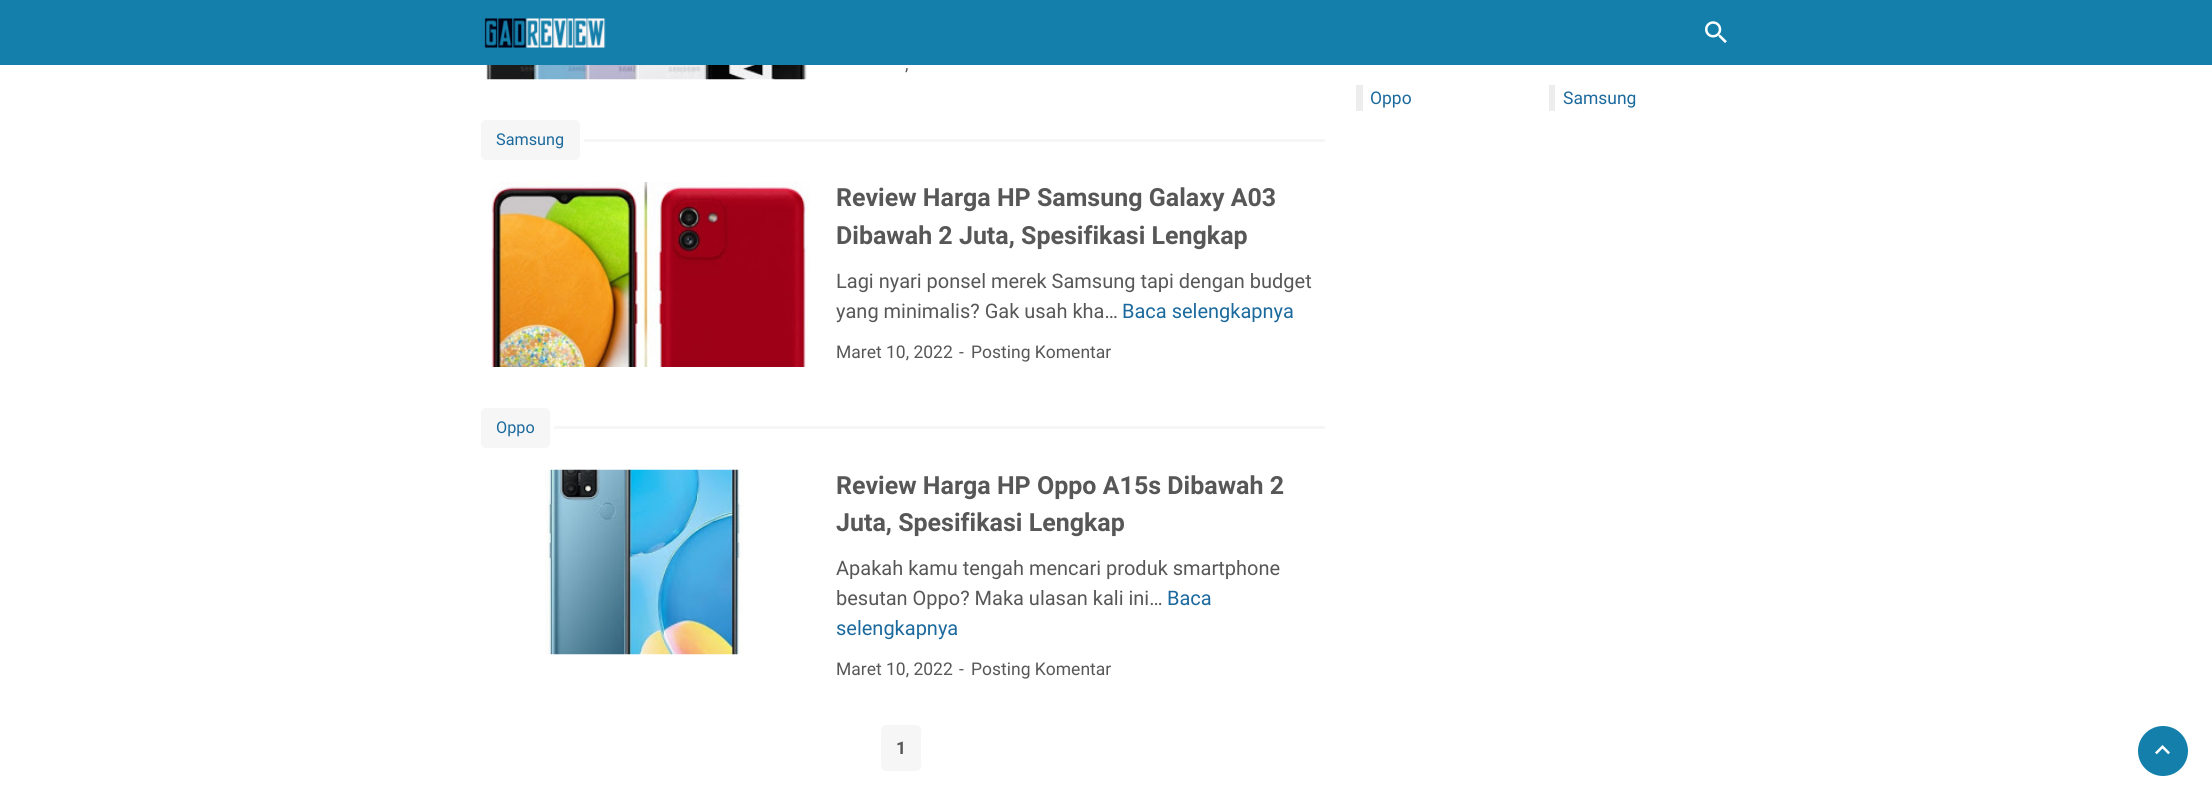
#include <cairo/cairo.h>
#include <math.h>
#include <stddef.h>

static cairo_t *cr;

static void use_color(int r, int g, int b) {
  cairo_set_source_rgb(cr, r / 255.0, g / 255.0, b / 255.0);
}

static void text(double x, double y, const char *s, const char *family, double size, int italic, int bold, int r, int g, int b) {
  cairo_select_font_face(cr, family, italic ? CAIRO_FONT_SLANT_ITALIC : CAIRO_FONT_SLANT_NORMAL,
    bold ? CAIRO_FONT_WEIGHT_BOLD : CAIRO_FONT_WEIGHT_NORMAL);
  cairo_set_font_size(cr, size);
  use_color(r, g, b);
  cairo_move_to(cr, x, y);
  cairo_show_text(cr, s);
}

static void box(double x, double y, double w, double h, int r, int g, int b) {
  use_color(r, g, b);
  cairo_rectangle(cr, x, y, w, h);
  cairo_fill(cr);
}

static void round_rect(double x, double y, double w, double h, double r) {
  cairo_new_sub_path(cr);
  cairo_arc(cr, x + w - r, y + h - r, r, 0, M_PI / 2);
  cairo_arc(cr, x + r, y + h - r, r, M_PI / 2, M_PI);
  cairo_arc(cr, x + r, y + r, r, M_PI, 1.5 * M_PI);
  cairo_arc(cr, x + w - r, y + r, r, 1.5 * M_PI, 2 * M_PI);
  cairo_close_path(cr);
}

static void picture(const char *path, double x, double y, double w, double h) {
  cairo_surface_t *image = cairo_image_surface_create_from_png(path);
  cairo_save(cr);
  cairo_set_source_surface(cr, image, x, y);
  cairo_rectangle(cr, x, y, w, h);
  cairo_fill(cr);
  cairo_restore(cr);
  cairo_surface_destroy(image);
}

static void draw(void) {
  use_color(255, 255, 255);
  cairo_paint(cr);
  box(0, 0, 2212, 65, 19, 127, 170);
  picture("img_01.png", 484, 18, 122, 30);
  picture("img_02.png", 1705, 21, 22, 22);
  picture("img_03.png", 486, 65, 321, 15);
  use_color(246, 246, 246);
  round_rect(481, 120, 99, 40, 5);
  cairo_fill(cr);
  box(584, 139, 741, 3, 246, 246, 246);
  picture("img_04.png", 491, 182, 319, 185);
  round_rect(481, 408, 69, 40, 5);
  cairo_fill(cr);
  box(554, 426, 771, 3, 246, 246, 246);
  picture("img_05.png", 545, 469, 198, 186);
  round_rect(881, 725, 40, 46, 5);
  cairo_fill(cr);
  box(1356, 85, 7, 26, 237, 237, 237);
  box(1549, 85, 6, 26, 237, 237, 237);
  use_color(19, 127, 170);
  cairo_arc(cr, 2163, 751, 25, 0, 2 * M_PI);
  cairo_fill(cr);
  picture("img_06.png", 2155, 745, 15, 10);
  text(905, 70, ",", "Roboto", 17.5, 0, 0, 87, 87, 87);
  text(496, 145, "Samsung", "Roboto", 16.25, 0, 0, 27, 105, 157);
  text(836, 206, "Review Harga HP Samsung Galaxy A03", "Roboto", 25, 0, 1, 87, 87, 87);
  text(836, 244, "Dibawah 2 Juta, Spesifikasi Lengkap", "Roboto", 25, 0, 1, 87, 87, 87);
  text(836, 288, "Lagi nyari ponsel merek Samsung tapi dengan budget", "Roboto", 20, 0, 0, 87, 87, 87);
  text(836, 318, "yang minimalis? Gak usah kha…", "Roboto", 20, 0, 0, 87, 87, 87);
  text(1122, 318, "Baca selengkapnya", "Roboto", 20, 0, 0, 27, 105, 157);
  text(836, 358, "Maret 10, 2022", "Roboto", 17.5, 0, 0, 87, 87, 87);
  text(959, 358, "-", "Roboto", 17.5, 0, 0, 87, 87, 87);
  text(971, 358, "Posting Komentar", "Roboto", 17.5, 0, 0, 87, 87, 87);
  text(496, 433, "Oppo", "Roboto", 16.25, 0, 0, 27, 105, 157);
  text(836, 494, "Review Harga HP Oppo A15s Dibawah 2", "Roboto", 25, 0, 1, 87, 87, 87);
  text(836, 531, "Juta, Spesifikasi Lengkap", "Roboto", 25, 0, 1, 87, 87, 87);
  text(836, 575, "Apakah kamu tengah mencari produk smartphone", "Roboto", 20, 0, 0, 87, 87, 87);
  text(836, 605, "besutan Oppo? Maka ulasan kali ini…", "Roboto", 20, 0, 0, 87, 87, 87);
  text(1167, 605, "Baca", "Roboto", 20, 0, 0, 27, 105, 157);
  text(836, 635, "selengkapnya", "Roboto", 20, 0, 0, 27, 105, 157);
  text(836, 675, "Maret 10, 2022", "Roboto", 17.5, 0, 0, 87, 87, 87);
  text(959, 675, "-", "Roboto", 17.5, 0, 0, 87, 87, 87);
  text(971, 675, "Posting Komentar", "Roboto", 17.5, 0, 0, 87, 87, 87);
  text(896, 754, "1", "Roboto", 17.5, 0, 1, 87, 87, 87);
  text(1370, 104, "Oppo", "Roboto", 17.5, 0, 0, 27, 105, 157);
  text(1563, 104, "Samsung", "Roboto", 17.5, 0, 0, 27, 105, 157);
}

int main(void) {
  cairo_surface_t *surface = cairo_image_surface_create(CAIRO_FORMAT_RGB24, 2212, 805);
  cr = cairo_create(surface);
  cairo_font_options_t *options = cairo_font_options_create();
  cairo_font_options_set_hint_metrics(options, CAIRO_HINT_METRICS_OFF);
  cairo_font_options_set_hint_style(options, CAIRO_HINT_STYLE_NONE);
  cairo_set_font_options(cr, options);
  cairo_set_miter_limit(cr, 4);
  draw();
  cairo_surface_write_to_png(surface, "out.png");
  cairo_font_options_destroy(options);
  cairo_destroy(cr);
  cairo_surface_destroy(surface);
  return 0;
}
